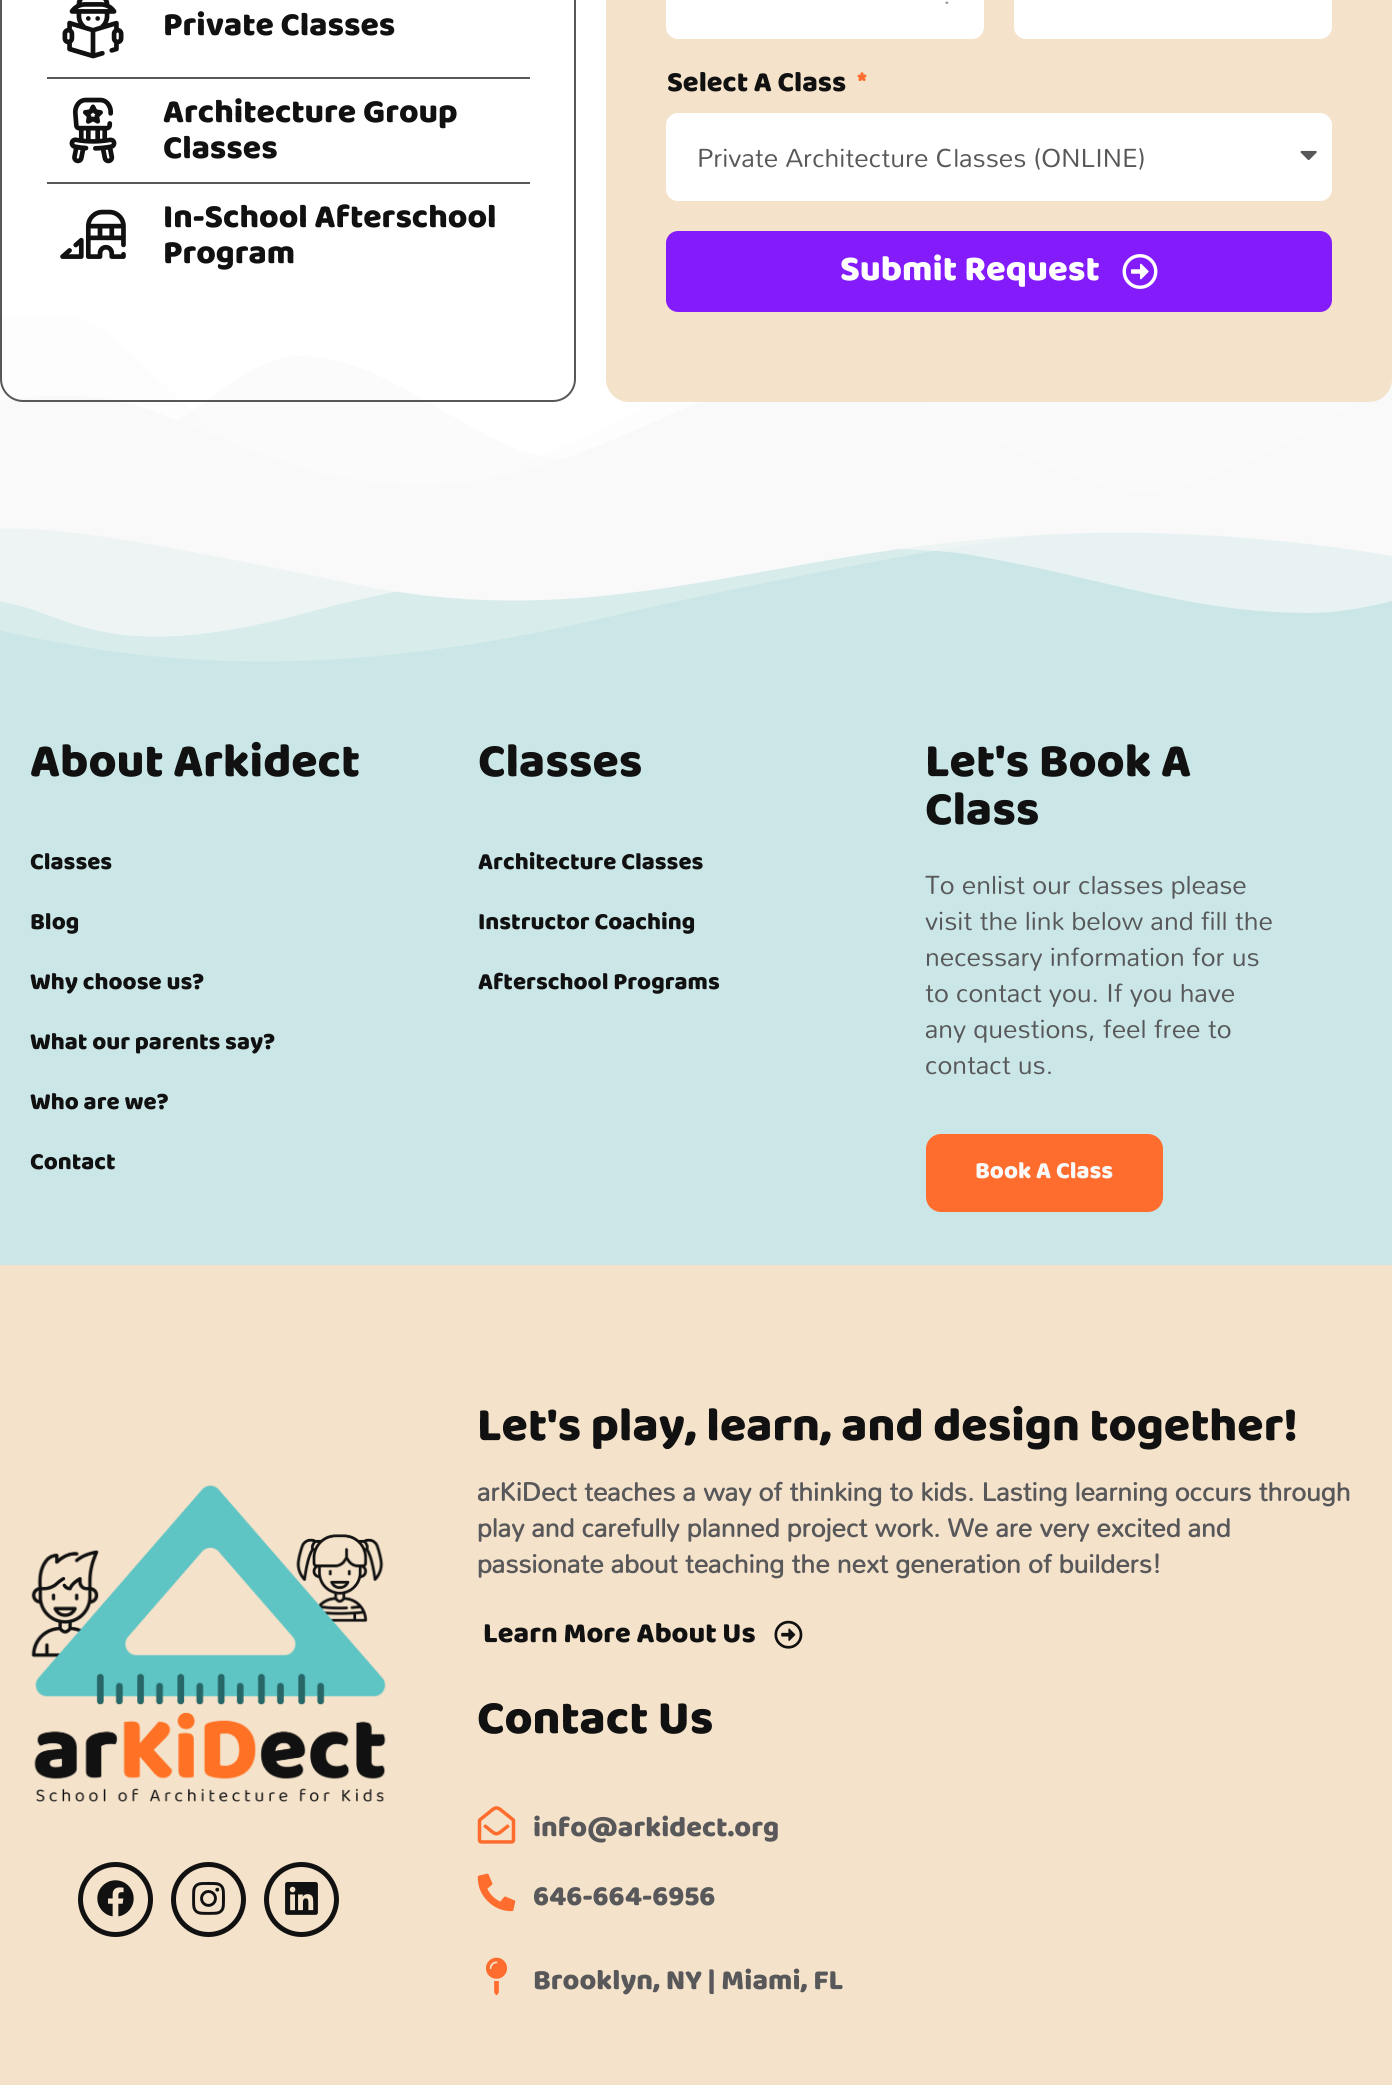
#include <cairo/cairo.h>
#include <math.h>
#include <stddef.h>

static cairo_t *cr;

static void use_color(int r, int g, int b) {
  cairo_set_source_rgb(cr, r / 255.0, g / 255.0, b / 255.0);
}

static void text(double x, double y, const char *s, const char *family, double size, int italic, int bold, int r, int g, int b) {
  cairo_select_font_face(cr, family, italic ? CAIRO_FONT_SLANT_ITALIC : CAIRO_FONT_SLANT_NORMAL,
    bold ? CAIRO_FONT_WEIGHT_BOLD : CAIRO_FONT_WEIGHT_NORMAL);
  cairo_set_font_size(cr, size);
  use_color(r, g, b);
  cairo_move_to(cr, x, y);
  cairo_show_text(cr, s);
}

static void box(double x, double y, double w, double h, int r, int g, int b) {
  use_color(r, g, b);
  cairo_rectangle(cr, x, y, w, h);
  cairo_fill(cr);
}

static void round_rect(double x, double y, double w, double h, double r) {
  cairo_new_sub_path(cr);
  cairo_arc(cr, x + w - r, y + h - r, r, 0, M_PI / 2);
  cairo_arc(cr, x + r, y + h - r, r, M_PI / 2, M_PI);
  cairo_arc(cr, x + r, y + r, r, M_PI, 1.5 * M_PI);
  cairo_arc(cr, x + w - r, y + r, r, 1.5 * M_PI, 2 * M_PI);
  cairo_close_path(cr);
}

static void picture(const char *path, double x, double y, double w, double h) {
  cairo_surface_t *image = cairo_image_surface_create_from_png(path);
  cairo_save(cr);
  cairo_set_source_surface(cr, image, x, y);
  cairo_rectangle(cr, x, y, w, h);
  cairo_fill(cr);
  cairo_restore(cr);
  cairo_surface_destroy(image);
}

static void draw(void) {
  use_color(255, 255, 255);
  cairo_paint(cr);
  picture("img_06.png", 0, 318, 1392, 197);
  round_rect(1, -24, 574, 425, 22);
  use_color(88, 88, 90);
  cairo_stroke(cr);
  picture("img_01.png", 62, 0, 62, 59);
  box(47, 77, 483, 2, 88, 88, 90);
  picture("img_02.png", 69, 97, 48, 67);
  box(47, 182, 483, 2, 88, 88, 90);
  picture("img_03.png", 60, 209, 66, 50);
  use_color(244, 226, 202);
  round_rect(606, -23, 786, 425, 23);
  cairo_fill(cr);
  use_color(255, 255, 255);
  round_rect(666, -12, 318, 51, 12);
  cairo_fill(cr);
  round_rect(1014, -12, 318, 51, 12);
  cairo_fill(cr);
  round_rect(666, 113, 666, 88, 12);
  cairo_fill(cr);
  picture("img_04.png", 1300, 150, 17, 11);
  use_color(132, 27, 250);
  round_rect(666, 231, 666, 81, 12);
  cairo_fill(cr);
  picture("img_05.png", 1122, 254, 36, 35);
  box(0, 528, 1392, 737, 202, 230, 230);
  picture("img_07.png", 0, 515, 1392, 147);
  use_color(255, 109, 46);
  round_rect(926, 1134, 237, 78, 15);
  cairo_fill(cr);
  box(0, 1265, 1392, 820, 244, 226, 202);
  picture("img_08.png", 31, 1485, 355, 317);
  cairo_arc(cr, 115.5, 1899.5, 35, 0, 2 * M_PI);
  use_color(17, 17, 17);
  cairo_set_line_width(cr, 5);
  cairo_stroke(cr);
  picture("img_09.png", 97, 1880, 37, 37);
  cairo_arc(cr, 208.5, 1899.5, 35, 0, 2 * M_PI);
  cairo_stroke(cr);
  picture("img_10.png", 192, 1881, 33, 34);
  cairo_arc(cr, 301.5, 1899.5, 35, 0, 2 * M_PI);
  cairo_stroke(cr);
  picture("img_11.png", 285, 1882, 33, 33);
  picture("img_12.png", 774, 1620, 29, 29);
  picture("img_13.png", 477, 1806, 39, 38);
  picture("img_14.png", 477, 1873, 39, 39);
  picture("img_15.png", 486, 1957, 21, 39);
  text(163, 35, "Private Classes", "Baloo 2 ExtraBold", 33.5, 0, 0, 17, 17, 17);
  text(163, 122, "Architecture Group", "Baloo 2 ExtraBold", 33.5, 0, 0, 17, 17, 17);
  text(163, 158, "Classes", "Baloo 2 ExtraBold", 33.5, 0, 0, 17, 17, 17);
  text(163, 227, "In-School Afterschool", "Baloo 2 ExtraBold", 33.5, 0, 0, 17, 17, 17);
  text(163, 263, "Program", "Baloo 2 ExtraBold", 33.5, 0, 0, 17, 17, 17);
  text(943, 4, ".", "Mandali", 27, 0, 0, 155, 155, 156);
  text(667, 91, "Select A Class", "Baloo 2 ExtraBold", 28.75, 0, 0, 17, 17, 17);
  text(857, 91, "*", "Baloo 2 ExtraBold", 28.75, 0, 0, 255, 109, 46);
  text(697, 167, "Private Architecture Classes (ONLINE)", "Mandali", 26.15, 0, 0, 88, 88, 90);
  text(840, 280, "Submit Request", "Baloo 2 ExtraBold", 36, 0, 0, 255, 255, 255);
  text(30, 776, "About Arkidect", "Baloo 2 ExtraBold", 48, 0, 0, 17, 17, 17);
  text(30, 869, "Classes", "Baloo 2 ExtraBold", 24, 0, 0, 17, 17, 17);
  text(30, 929, "Blog", "Baloo 2 ExtraBold", 24, 0, 0, 17, 17, 17);
  text(30, 989, "Why choose us?", "Baloo 2 ExtraBold", 24, 0, 0, 17, 17, 17);
  text(30, 1049, "What our parents say?", "Baloo 2 ExtraBold", 24, 0, 0, 17, 17, 17);
  text(30, 1109, "Who are we?", "Baloo 2 ExtraBold", 24, 0, 0, 17, 17, 17);
  text(30, 1169, "Contact", "Baloo 2 ExtraBold", 24, 0, 0, 17, 17, 17);
  text(478, 776, "Classes", "Baloo 2 ExtraBold", 48, 0, 0, 17, 17, 17);
  text(478, 869, "Architecture Classes", "Baloo 2 ExtraBold", 24, 0, 0, 17, 17, 17);
  text(478, 929, "Instructor Coaching", "Baloo 2 ExtraBold", 24, 0, 0, 17, 17, 17);
  text(478, 989, "Afterschool Programs", "Baloo 2 ExtraBold", 24, 0, 0, 17, 17, 17);
  text(925, 776, "Let's Book A", "Baloo 2 ExtraBold", 48, 0, 0, 17, 17, 17);
  text(925, 824, "Class", "Baloo 2 ExtraBold", 48, 0, 0, 17, 17, 17);
  text(925, 894, "To enlist our classes please", "Mandali", 26.15, 0, 0, 88, 88, 90);
  text(925, 930, "visit the link below and fill the", "Mandali", 26.15, 0, 0, 88, 88, 90);
  text(925, 966, "necessary information for us", "Mandali", 26.15, 0, 0, 88, 88, 90);
  text(925, 1002, "to contact you. If you have", "Mandali", 26.15, 0, 0, 88, 88, 90);
  text(925, 1038, "any questions, feel free to", "Mandali", 26.15, 0, 0, 88, 88, 90);
  text(925, 1074, "contact us.", "Mandali", 26.15, 0, 0, 88, 88, 90);
  text(975, 1178, "Book A Class", "Baloo 2 ExtraBold", 24, 0, 0, 249, 249, 249);
  text(477, 1440, "Let's play, learn, and design together!", "Baloo 2 ExtraBold", 48, 0, 0, 17, 17, 17);
  text(477, 1501, "arKiDect teaches a way of thinking to kids. Lasting learning occurs through", "Mandali", 26.15, 0, 1, 88, 88, 90);
  text(477, 1537, "play and carefully planned project work. We are very excited and", "Mandali", 26.15, 0, 1, 88, 88, 90);
  text(477, 1573, "passionate about teaching the next generation of builders!", "Mandali", 26.15, 0, 1, 88, 88, 90);
  text(483, 1642, "Learn More About Us", "Baloo 2 ExtraBold", 28.75, 0, 0, 17, 17, 17);
  text(477, 1733, "Contact Us", "Baloo 2 ExtraBold", 48, 0, 0, 17, 17, 17);
  text(533, 1836, "info@arkidect.org", "Baloo 2 ExtraBold", 28.75, 0, 0, 88, 88, 90);
  text(533, 1905, "646-664-6956", "Baloo 2 ExtraBold", 28.75, 0, 0, 88, 88, 90);
  text(533, 1989, "Brooklyn, NY | Miami, FL", "Baloo 2 ExtraBold", 28.75, 0, 0, 88, 88, 90);
}

int main(void) {
  cairo_surface_t *surface = cairo_image_surface_create(CAIRO_FORMAT_RGB24, 1392, 2085);
  cr = cairo_create(surface);
  cairo_font_options_t *options = cairo_font_options_create();
  cairo_font_options_set_hint_metrics(options, CAIRO_HINT_METRICS_OFF);
  cairo_font_options_set_hint_style(options, CAIRO_HINT_STYLE_NONE);
  cairo_set_font_options(cr, options);
  cairo_set_miter_limit(cr, 4);
  draw();
  cairo_surface_write_to_png(surface, "out.png");
  cairo_font_options_destroy(options);
  cairo_destroy(cr);
  cairo_surface_destroy(surface);
  return 0;
}
